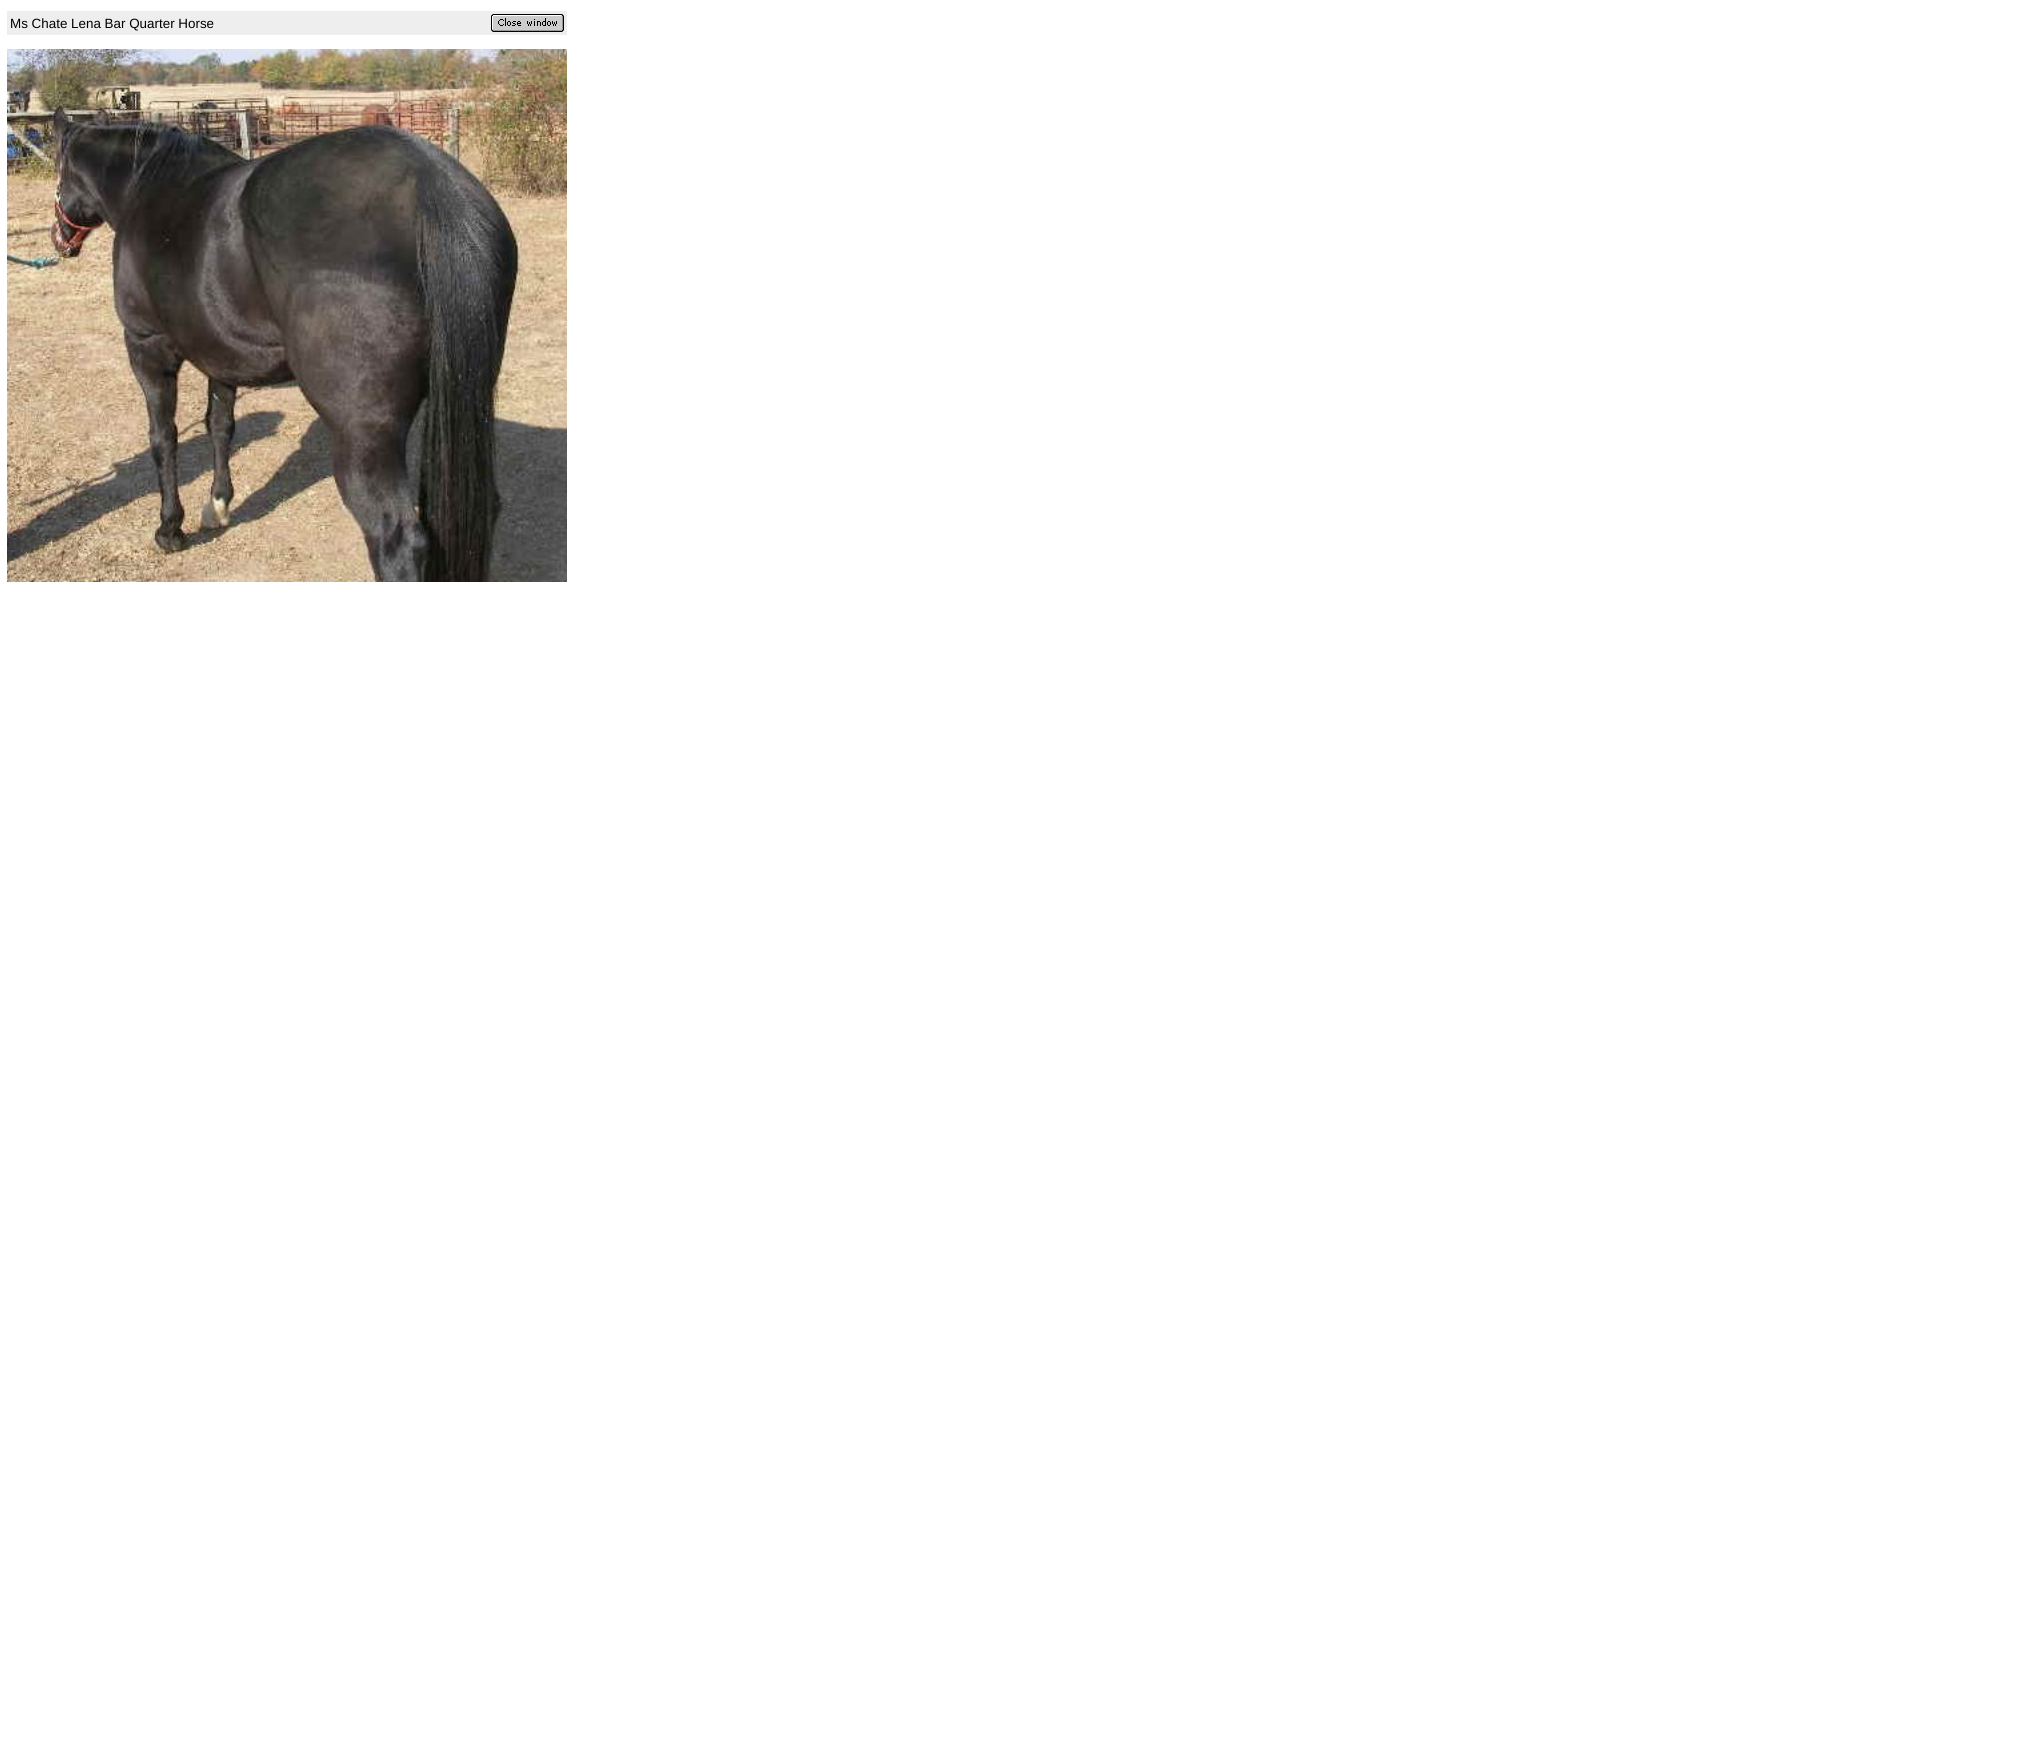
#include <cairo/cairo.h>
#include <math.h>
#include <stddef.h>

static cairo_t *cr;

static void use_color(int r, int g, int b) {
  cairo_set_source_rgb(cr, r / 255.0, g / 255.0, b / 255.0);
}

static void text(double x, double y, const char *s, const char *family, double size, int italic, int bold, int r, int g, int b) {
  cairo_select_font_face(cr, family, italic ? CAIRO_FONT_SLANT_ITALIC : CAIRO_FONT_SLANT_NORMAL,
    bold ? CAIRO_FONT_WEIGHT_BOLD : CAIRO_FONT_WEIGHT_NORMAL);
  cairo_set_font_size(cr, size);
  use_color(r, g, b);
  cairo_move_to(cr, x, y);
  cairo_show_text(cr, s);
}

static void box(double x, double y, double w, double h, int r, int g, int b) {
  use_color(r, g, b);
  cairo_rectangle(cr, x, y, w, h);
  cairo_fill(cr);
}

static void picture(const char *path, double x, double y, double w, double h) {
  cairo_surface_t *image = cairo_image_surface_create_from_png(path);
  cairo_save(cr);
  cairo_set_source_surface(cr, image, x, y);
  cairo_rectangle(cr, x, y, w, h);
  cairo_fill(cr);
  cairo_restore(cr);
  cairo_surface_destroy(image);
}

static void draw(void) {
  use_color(255, 255, 255);
  cairo_paint(cr);
  box(7, 11, 560, 24, 238, 238, 238);
  picture("img_01.png", 491, 14, 73, 18);
  picture("img_02.png", 7, 49, 560, 533);
  text(10, 28, "Ms Chate Lena Bar Quarter Horse", "Liberation Sans", 13.4, 0, 0, 0, 0, 0);
}

int main(void) {
  cairo_surface_t *surface = cairo_image_surface_create(CAIRO_FORMAT_RGB24, 2041, 1755);
  cr = cairo_create(surface);
  cairo_font_options_t *options = cairo_font_options_create();
  cairo_font_options_set_hint_metrics(options, CAIRO_HINT_METRICS_OFF);
  cairo_font_options_set_hint_style(options, CAIRO_HINT_STYLE_NONE);
  cairo_set_font_options(cr, options);
  cairo_set_miter_limit(cr, 4);
  draw();
  cairo_surface_write_to_png(surface, "out.png");
  cairo_font_options_destroy(options);
  cairo_destroy(cr);
  cairo_surface_destroy(surface);
  return 0;
}
